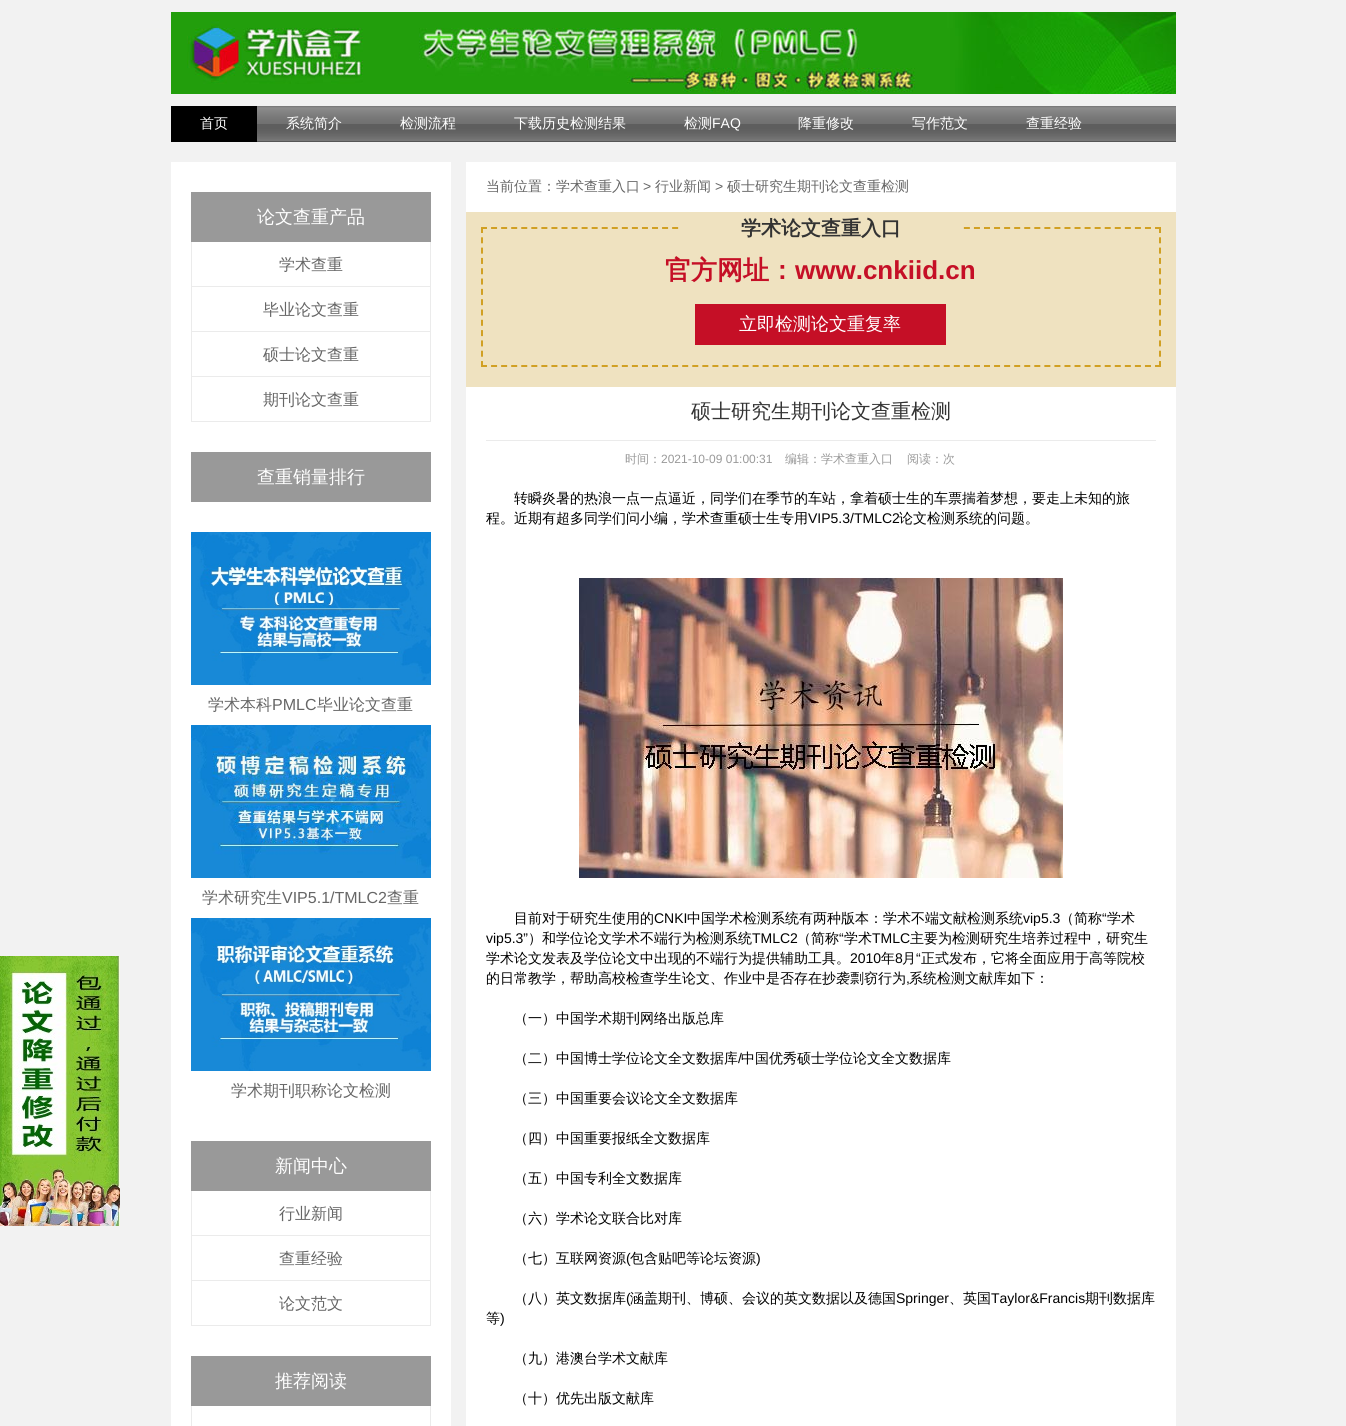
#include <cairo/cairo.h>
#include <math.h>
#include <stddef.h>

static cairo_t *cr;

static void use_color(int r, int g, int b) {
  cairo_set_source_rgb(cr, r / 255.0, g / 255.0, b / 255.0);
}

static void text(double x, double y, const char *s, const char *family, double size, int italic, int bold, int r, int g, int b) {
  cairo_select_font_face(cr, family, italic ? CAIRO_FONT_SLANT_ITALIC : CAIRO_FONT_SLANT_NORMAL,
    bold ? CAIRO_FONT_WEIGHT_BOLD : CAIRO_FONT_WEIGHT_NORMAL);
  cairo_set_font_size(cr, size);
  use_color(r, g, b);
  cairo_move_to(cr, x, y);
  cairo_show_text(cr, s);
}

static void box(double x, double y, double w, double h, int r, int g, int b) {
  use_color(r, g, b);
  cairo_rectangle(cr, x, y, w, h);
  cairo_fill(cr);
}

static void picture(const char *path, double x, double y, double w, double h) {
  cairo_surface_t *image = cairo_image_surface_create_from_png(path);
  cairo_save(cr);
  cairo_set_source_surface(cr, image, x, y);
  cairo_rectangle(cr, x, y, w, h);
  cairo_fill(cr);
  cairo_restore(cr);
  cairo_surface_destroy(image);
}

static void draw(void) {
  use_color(242, 242, 242);
  cairo_paint(cr);
  picture("img_01.png", 171, 12, 1005, 82);
  picture("img_02.png", 0, 956, 120, 270);
  picture("img_03.png", 257, 106, 919, 36);
  box(171, 106, 86, 36, 0, 0, 0);
  box(171, 162, 280, 1264, 255, 255, 255);
  box(191, 192, 240, 50, 153, 153, 153);
  box(430, 242, 1, 180, 235, 235, 235);
  box(191, 286, 240, 1, 235, 235, 235);
  box(191, 242, 1, 45, 235, 235, 235);
  box(191, 331, 240, 1, 235, 235, 235);
  box(191, 287, 1, 45, 235, 235, 235);
  box(191, 376, 240, 1, 235, 235, 235);
  box(191, 332, 1, 45, 235, 235, 235);
  box(191, 421, 240, 1, 235, 235, 235);
  box(191, 377, 1, 45, 235, 235, 235);
  box(191, 452, 240, 50, 153, 153, 153);
  picture("img_04.png", 191, 532, 240, 153);
  picture("img_05.png", 191, 725, 240, 153);
  picture("img_06.png", 191, 918, 240, 153);
  box(191, 1141, 240, 50, 153, 153, 153);
  box(430, 1191, 1, 135, 235, 235, 235);
  box(191, 1235, 240, 1, 235, 235, 235);
  box(191, 1191, 1, 45, 235, 235, 235);
  box(191, 1280, 240, 1, 235, 235, 235);
  box(191, 1236, 1, 45, 235, 235, 235);
  box(191, 1325, 240, 1, 235, 235, 235);
  box(191, 1281, 1, 45, 235, 235, 235);
  box(191, 1356, 240, 50, 153, 153, 153);
  box(430, 1406, 1, 20, 235, 235, 235);
  box(191, 1406, 1, 20, 235, 235, 235);
  box(466, 162, 710, 50, 255, 255, 255);
  box(466, 212, 710, 175, 239, 226, 192);
  cairo_new_path(cr);
  cairo_move_to(cr, 481, 228);
  cairo_line_to(cr, 1161, 228);
  use_color(209, 160, 35);
  cairo_set_dash(cr, (double[]){6, 4.06}, 2, 0);
  cairo_stroke(cr);
  cairo_new_path(cr);
  cairo_move_to(cr, 1160, 227);
  cairo_line_to(cr, 1160, 367);
  cairo_set_dash(cr, (double[]){6, 4.31}, 2, 0);
  cairo_stroke(cr);
  cairo_new_path(cr);
  cairo_move_to(cr, 481, 366);
  cairo_line_to(cr, 1161, 366);
  cairo_set_dash(cr, (double[]){6, 4.06}, 2, 0);
  cairo_stroke(cr);
  cairo_new_path(cr);
  cairo_move_to(cr, 482, 227);
  cairo_line_to(cr, 482, 367);
  cairo_set_dash(cr, (double[]){6, 4.31}, 2, 0);
  cairo_stroke(cr);
  box(682, 227, 278, 2, 239, 226, 192);
  box(695, 304, 251, 41, 197, 15, 38);
  box(466, 387, 710, 1039, 255, 255, 255);
  box(486, 440, 670, 1, 235, 235, 235);
  picture("img_07.png", 579, 578, 484, 300);
  text(200, 128, "首页", "WenQuanYi Zen Hei Medium", 14, 0, 0, 255, 255, 255);
  text(286, 128, "系统简介", "WenQuanYi Zen Hei Medium", 14, 0, 0, 255, 255, 255);
  text(400, 128, "检测流程", "WenQuanYi Zen Hei Medium", 14, 0, 0, 255, 255, 255);
  text(514, 128, "下载历史检测结果", "WenQuanYi Zen Hei Medium", 14, 0, 0, 255, 255, 255);
  text(684, 128, "检测", "WenQuanYi Zen Hei Medium", 14, 0, 0, 255, 255, 255);
  text(712, 128, "FAQ", "Liberation Sans", 14, 0, 0, 255, 255, 255);
  text(798, 128, "降重修改", "WenQuanYi Zen Hei Medium", 14, 0, 0, 255, 255, 255);
  text(912, 128, "写作范文", "WenQuanYi Zen Hei Medium", 14, 0, 0, 255, 255, 255);
  text(1026, 128, "查重经验", "WenQuanYi Zen Hei Medium", 14, 0, 0, 255, 255, 255);
  text(257, 223, "论文查重产品", "WenQuanYi Zen Hei Medium", 18, 0, 0, 255, 255, 255);
  text(279, 270, "学术查重", "WenQuanYi Zen Hei Medium", 16, 0, 0, 102, 102, 102);
  text(263, 315, "毕业论文查重", "WenQuanYi Zen Hei Medium", 16, 0, 0, 102, 102, 102);
  text(263, 360, "硕士论文查重", "WenQuanYi Zen Hei Medium", 16, 0, 0, 102, 102, 102);
  text(263, 405, "期刊论文查重", "WenQuanYi Zen Hei Medium", 16, 0, 0, 102, 102, 102);
  text(257, 483, "查重销量排行", "WenQuanYi Zen Hei Medium", 18, 0, 0, 255, 255, 255);
  text(208, 710, "学术本科", "WenQuanYi Zen Hei Medium", 16, 0, 0, 102, 102, 102);
  text(272, 710, "PMLC", "Liberation Sans", 16, 0, 0, 102, 102, 102);
  text(317, 710, "毕业论文查重", "WenQuanYi Zen Hei Medium", 16, 0, 0, 102, 102, 102);
  text(202, 903, "学术研究生", "WenQuanYi Zen Hei Medium", 16, 0, 0, 102, 102, 102);
  text(282, 903, "VIP5.1/TMLC2", "Liberation Sans", 16, 0, 0, 102, 102, 102);
  text(387, 903, "查重", "WenQuanYi Zen Hei Medium", 16, 0, 0, 102, 102, 102);
  text(231, 1096, "学术期刊职称论文检测", "WenQuanYi Zen Hei Medium", 16, 0, 0, 102, 102, 102);
  text(275, 1172, "新闻中心", "WenQuanYi Zen Hei Medium", 18, 0, 0, 255, 255, 255);
  text(279, 1219, "行业新闻", "WenQuanYi Zen Hei Medium", 16, 0, 0, 102, 102, 102);
  text(279, 1264, "查重经验", "WenQuanYi Zen Hei Medium", 16, 0, 0, 102, 102, 102);
  text(279, 1309, "论文范文", "WenQuanYi Zen Hei Medium", 16, 0, 0, 102, 102, 102);
  text(275, 1387, "推荐阅读", "WenQuanYi Zen Hei Medium", 18, 0, 0, 255, 255, 255);
  text(486, 191, "当前位置：学术查重入口", "WenQuanYi Zen Hei Medium", 14, 0, 0, 102, 102, 102);
  text(643, 191, ">", "Liberation Sans", 14, 0, 0, 102, 102, 102);
  text(655, 191, "行业新闻", "WenQuanYi Zen Hei Medium", 14, 0, 0, 102, 102, 102);
  text(715, 191, ">", "Liberation Sans", 14, 0, 0, 102, 102, 102);
  text(727, 191, "硕士研究生期刊论文查重检测", "WenQuanYi Zen Hei Medium", 14, 0, 0, 102, 102, 102);
  text(741, 235, "学术论文查重入口", "WenQuanYi Zen Hei", 20, 0, 1, 51, 51, 51);
  text(665, 279, "官方网址：", "WenQuanYi Zen Hei", 26, 0, 1, 197, 15, 38);
  text(795, 279, "www.cnkiid.cn", "Liberation Sans", 26, 0, 1, 197, 15, 38);
  text(739, 330, "立即检测论文重复率", "WenQuanYi Zen Hei Medium", 18, 0, 0, 255, 255, 255);
  text(691, 418, "硕士研究生期刊论文查重检测", "WenQuanYi Zen Hei Medium", 20, 0, 0, 51, 51, 51);
  text(625, 463, "时间：", "WenQuanYi Zen Hei Medium", 12, 0, 0, 153, 153, 153);
  text(661, 463, "2021-10-09 01:00:31", "Liberation Sans", 12, 0, 0, 153, 153, 153);
  text(785, 463, "编辑：学术查重入口", "WenQuanYi Zen Hei Medium", 12, 0, 0, 153, 153, 153);
  text(907, 463, "阅读：次", "WenQuanYi Zen Hei Medium", 12, 0, 0, 153, 153, 153);
  text(514, 503, "转瞬炎暑的热浪一点一点逼近，同学们在季节的车站，拿着硕士生的车票揣着梦想，要走上未知的旅", "WenQuanYi Zen Hei Medium", 14, 0, 0, 0, 0, 0);
  text(486, 523, "程。近期有超多同学们问小编，学术查重硕士生专用", "WenQuanYi Zen Hei Medium", 14, 0, 0, 0, 0, 0);
  text(808, 523, "VIP5.3/TMLC2", "Liberation Sans", 14, 0, 0, 0, 0, 0);
  text(899, 523, "论文检测系统的问题。", "WenQuanYi Zen Hei Medium", 14, 0, 0, 0, 0, 0);
  text(514, 923, "目前对于研究生使用的", "WenQuanYi Zen Hei Medium", 14, 0, 0, 0, 0, 0);
  text(654, 923, "CNKI", "Liberation Sans", 14, 0, 0, 0, 0, 0);
  text(687, 923, "中国学术检测系统有两种版本：学术不端文献检测系统", "WenQuanYi Zen Hei Medium", 14, 0, 0, 0, 0, 0);
  text(1023, 923, "vip5.3", "Liberation Sans", 14, 0, 0, 0, 0, 0);
  text(1060, 923, "（简称", "WenQuanYi Zen Hei Medium", 14, 0, 0, 0, 0, 0);
  text(1102, 923, "“", "Liberation Sans", 14, 0, 0, 0, 0, 0);
  text(1107, 923, "学术", "WenQuanYi Zen Hei Medium", 14, 0, 0, 0, 0, 0);
  text(486, 943, "vip5.3”", "Liberation Sans", 14, 0, 0, 0, 0, 0);
  text(528, 943, "）和学位论文学术不端行为检测系统", "WenQuanYi Zen Hei Medium", 14, 0, 0, 0, 0, 0);
  text(752, 943, "TMLC2", "Liberation Sans", 14, 0, 0, 0, 0, 0);
  text(797, 943, "（简称", "WenQuanYi Zen Hei Medium", 14, 0, 0, 0, 0, 0);
  text(839, 943, "“", "Liberation Sans", 14, 0, 0, 0, 0, 0);
  text(844, 943, "学术", "WenQuanYi Zen Hei Medium", 14, 0, 0, 0, 0, 0);
  text(872, 943, "TMLC", "Liberation Sans", 14, 0, 0, 0, 0, 0);
  text(910, 943, "主要为检测研究生培养过程中，研究生", "WenQuanYi Zen Hei Medium", 14, 0, 0, 0, 0, 0);
  text(486, 963, "学术论文发表及学位论文中出现的不端行为提供辅助工具。", "WenQuanYi Zen Hei Medium", 14, 0, 0, 0, 0, 0);
  text(850, 963, "2010", "Liberation Sans", 14, 0, 0, 0, 0, 0);
  text(881, 963, "年", "WenQuanYi Zen Hei Medium", 14, 0, 0, 0, 0, 0);
  text(895, 963, "8", "Liberation Sans", 14, 0, 0, 0, 0, 0);
  text(902, 963, "月", "WenQuanYi Zen Hei Medium", 14, 0, 0, 0, 0, 0);
  text(916, 963, "“", "Liberation Sans", 14, 0, 0, 0, 0, 0);
  text(921, 963, "正式发布，它将全面应用于高等院校", "WenQuanYi Zen Hei Medium", 14, 0, 0, 0, 0, 0);
  text(486, 983, "的日常教学，帮助高校检查学生论文、作业中是否存在抄袭剽窃行为", "WenQuanYi Zen Hei Medium", 14, 0, 0, 0, 0, 0);
  text(906, 983, ",", "Liberation Sans", 14, 0, 0, 0, 0, 0);
  text(909, 983, "系统检测文献库如下：", "WenQuanYi Zen Hei Medium", 14, 0, 0, 0, 0, 0);
  text(514, 1023, "（一）中国学术期刊网络出版总库", "WenQuanYi Zen Hei Medium", 14, 0, 0, 0, 0, 0);
  text(514, 1063, "（二）中国博士学位论文全文数据库", "WenQuanYi Zen Hei Medium", 14, 0, 0, 0, 0, 0);
  text(738, 1063, "/", "Liberation Sans", 14, 0, 0, 0, 0, 0);
  text(741, 1063, "中国优秀硕士学位论文全文数据库", "WenQuanYi Zen Hei Medium", 14, 0, 0, 0, 0, 0);
  text(514, 1103, "（三）中国重要会议论文全文数据库", "WenQuanYi Zen Hei Medium", 14, 0, 0, 0, 0, 0);
  text(514, 1143, "（四）中国重要报纸全文数据库", "WenQuanYi Zen Hei Medium", 14, 0, 0, 0, 0, 0);
  text(514, 1183, "（五）中国专利全文数据库", "WenQuanYi Zen Hei Medium", 14, 0, 0, 0, 0, 0);
  text(514, 1223, "（六）学术论文联合比对库", "WenQuanYi Zen Hei Medium", 14, 0, 0, 0, 0, 0);
  text(514, 1263, "（七）互联网资源", "WenQuanYi Zen Hei Medium", 14, 0, 0, 0, 0, 0);
  text(626, 1263, "(", "Liberation Sans", 14, 0, 0, 0, 0, 0);
  text(630, 1263, "包含贴吧等论坛资源", "WenQuanYi Zen Hei Medium", 14, 0, 0, 0, 0, 0);
  text(756, 1263, ")", "Liberation Sans", 14, 0, 0, 0, 0, 0);
  text(514, 1303, "（八）英文数据库", "WenQuanYi Zen Hei Medium", 14, 0, 0, 0, 0, 0);
  text(626, 1303, "(", "Liberation Sans", 14, 0, 0, 0, 0, 0);
  text(630, 1303, "涵盖期刊、博硕、会议的英文数据以及德国", "WenQuanYi Zen Hei Medium", 14, 0, 0, 0, 0, 0);
  text(896, 1303, "Springer", "Liberation Sans", 14, 0, 0, 0, 0, 0);
  text(949, 1303, "、英国", "WenQuanYi Zen Hei Medium", 14, 0, 0, 0, 0, 0);
  text(991, 1303, "Taylor&Francis", "Liberation Sans", 14, 0, 0, 0, 0, 0);
  text(1085, 1303, "期刊数据库", "WenQuanYi Zen Hei Medium", 14, 0, 0, 0, 0, 0);
  text(486, 1323, "等", "WenQuanYi Zen Hei Medium", 14, 0, 0, 0, 0, 0);
  text(500, 1323, ")", "Liberation Sans", 14, 0, 0, 0, 0, 0);
  text(514, 1363, "（九）港澳台学术文献库", "WenQuanYi Zen Hei Medium", 14, 0, 0, 0, 0, 0);
  text(514, 1403, "（十）优先出版文献库", "WenQuanYi Zen Hei Medium", 14, 0, 0, 0, 0, 0);
}

int main(void) {
  cairo_surface_t *surface = cairo_image_surface_create(CAIRO_FORMAT_RGB24, 1346, 1426);
  cr = cairo_create(surface);
  cairo_font_options_t *options = cairo_font_options_create();
  cairo_font_options_set_hint_metrics(options, CAIRO_HINT_METRICS_OFF);
  cairo_font_options_set_hint_style(options, CAIRO_HINT_STYLE_NONE);
  cairo_set_font_options(cr, options);
  cairo_set_miter_limit(cr, 4);
  draw();
  cairo_surface_write_to_png(surface, "out.png");
  cairo_font_options_destroy(options);
  cairo_destroy(cr);
  cairo_surface_destroy(surface);
  return 0;
}
